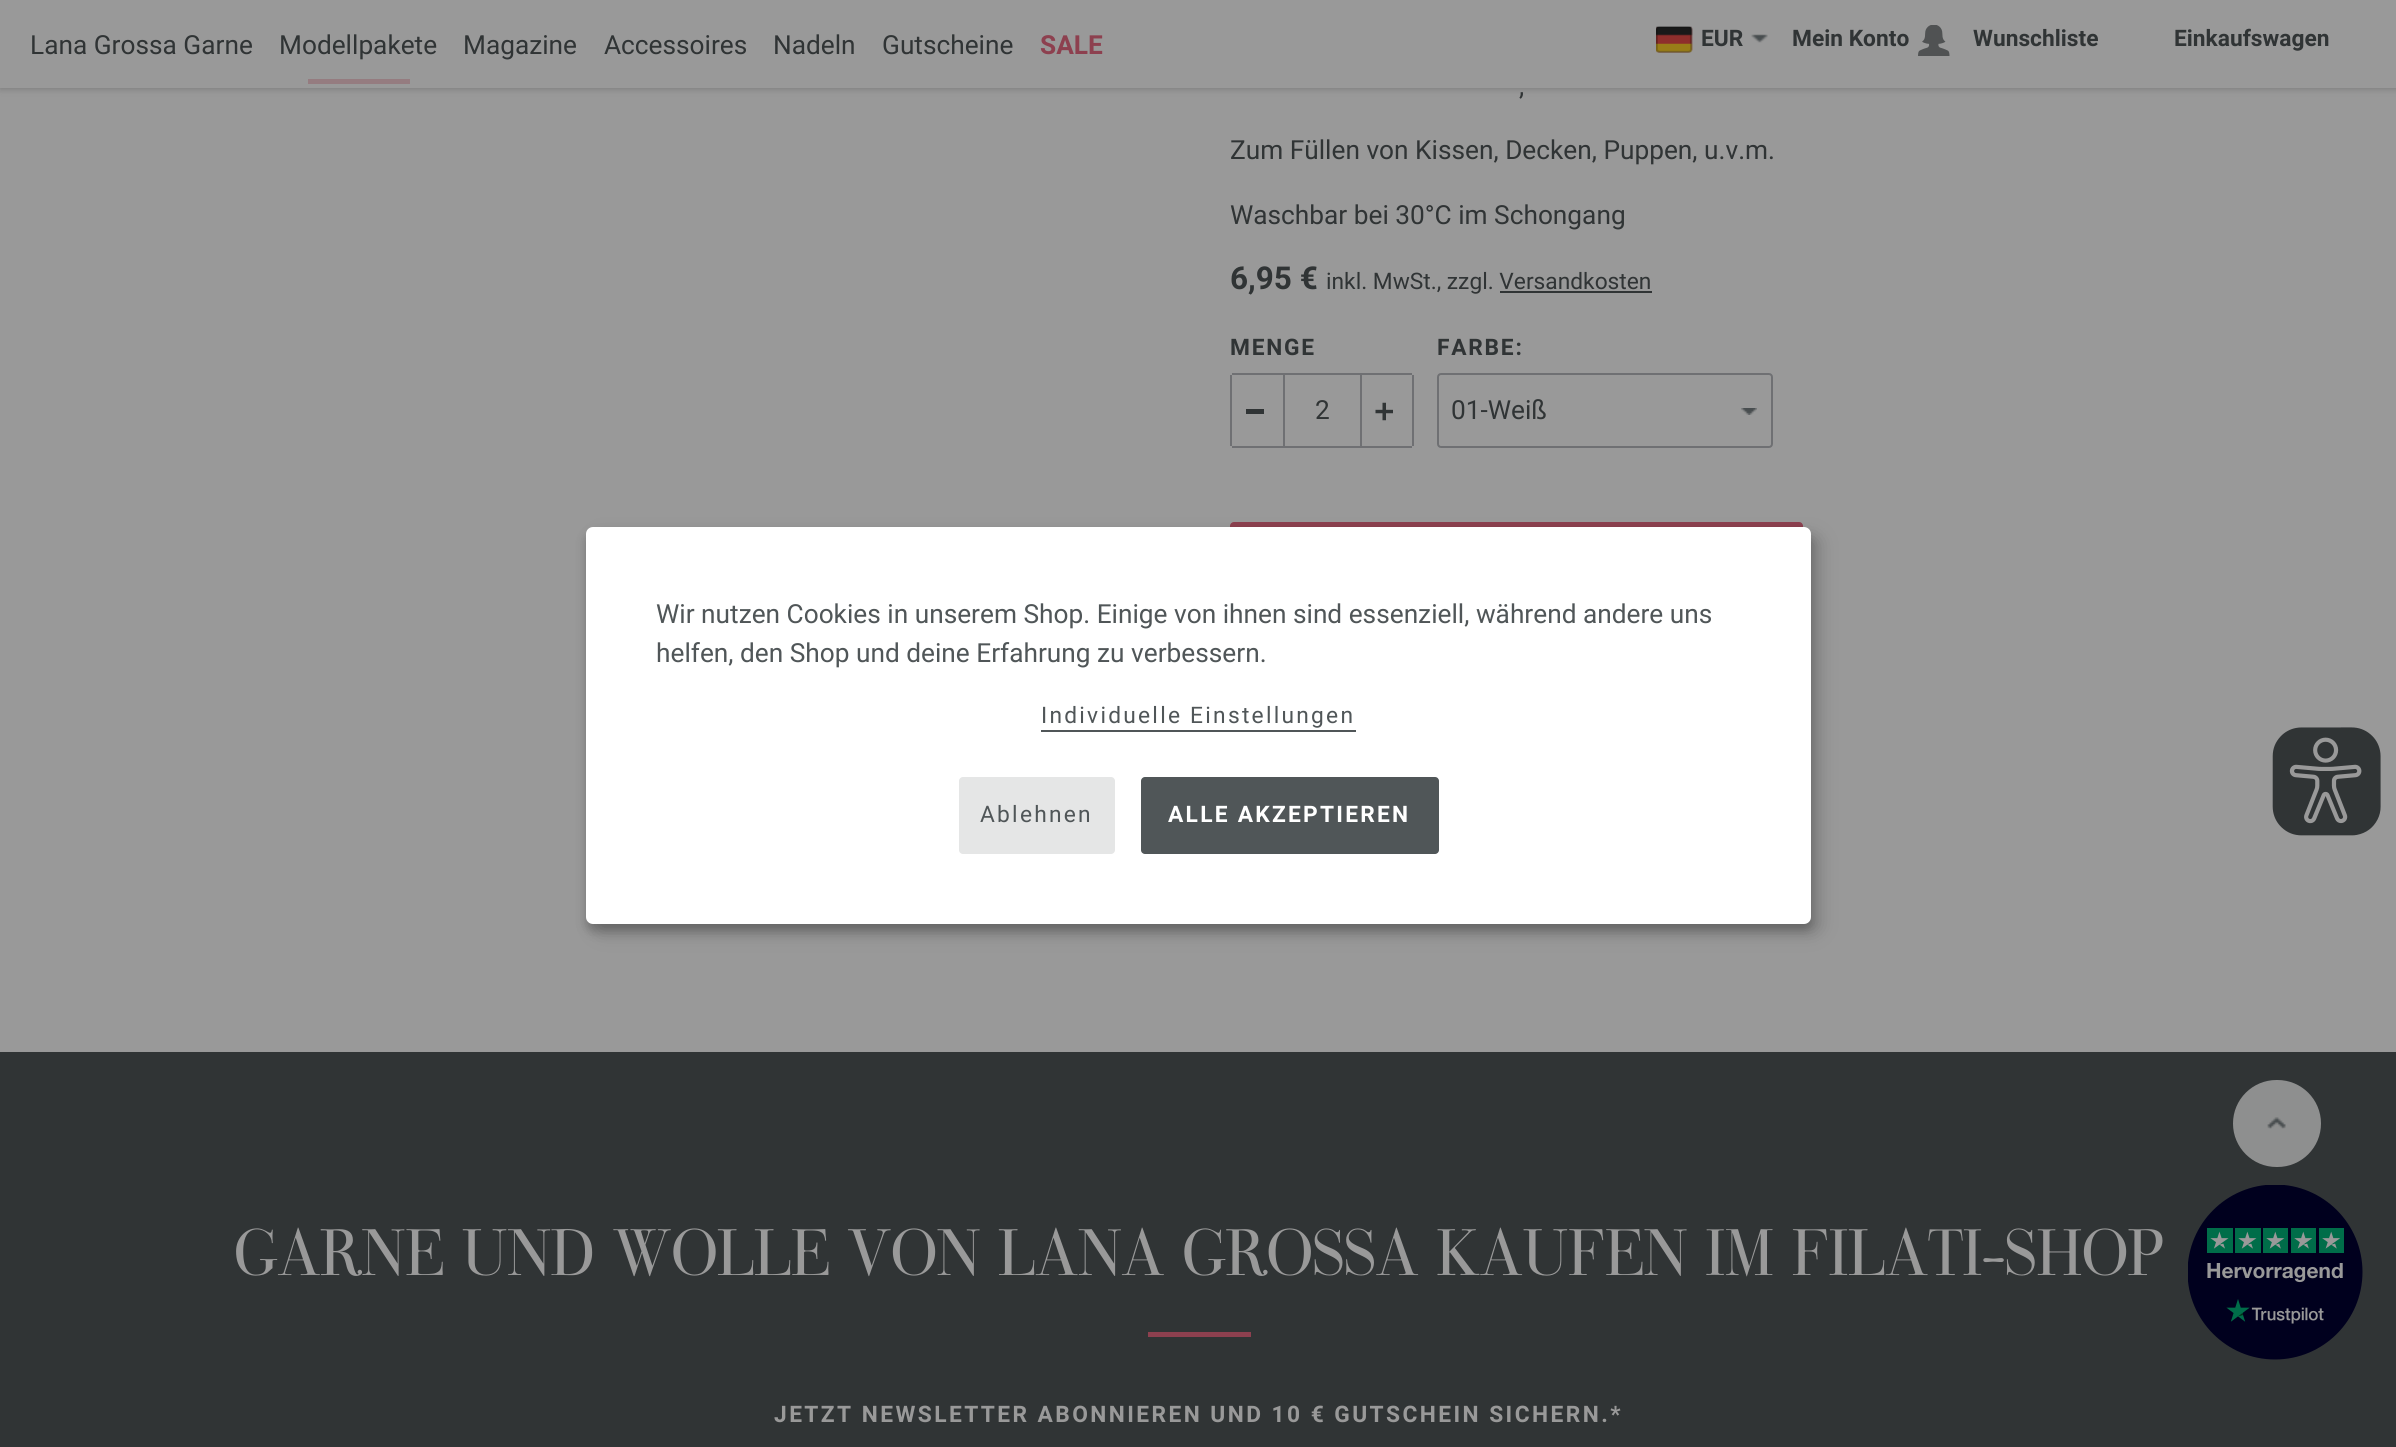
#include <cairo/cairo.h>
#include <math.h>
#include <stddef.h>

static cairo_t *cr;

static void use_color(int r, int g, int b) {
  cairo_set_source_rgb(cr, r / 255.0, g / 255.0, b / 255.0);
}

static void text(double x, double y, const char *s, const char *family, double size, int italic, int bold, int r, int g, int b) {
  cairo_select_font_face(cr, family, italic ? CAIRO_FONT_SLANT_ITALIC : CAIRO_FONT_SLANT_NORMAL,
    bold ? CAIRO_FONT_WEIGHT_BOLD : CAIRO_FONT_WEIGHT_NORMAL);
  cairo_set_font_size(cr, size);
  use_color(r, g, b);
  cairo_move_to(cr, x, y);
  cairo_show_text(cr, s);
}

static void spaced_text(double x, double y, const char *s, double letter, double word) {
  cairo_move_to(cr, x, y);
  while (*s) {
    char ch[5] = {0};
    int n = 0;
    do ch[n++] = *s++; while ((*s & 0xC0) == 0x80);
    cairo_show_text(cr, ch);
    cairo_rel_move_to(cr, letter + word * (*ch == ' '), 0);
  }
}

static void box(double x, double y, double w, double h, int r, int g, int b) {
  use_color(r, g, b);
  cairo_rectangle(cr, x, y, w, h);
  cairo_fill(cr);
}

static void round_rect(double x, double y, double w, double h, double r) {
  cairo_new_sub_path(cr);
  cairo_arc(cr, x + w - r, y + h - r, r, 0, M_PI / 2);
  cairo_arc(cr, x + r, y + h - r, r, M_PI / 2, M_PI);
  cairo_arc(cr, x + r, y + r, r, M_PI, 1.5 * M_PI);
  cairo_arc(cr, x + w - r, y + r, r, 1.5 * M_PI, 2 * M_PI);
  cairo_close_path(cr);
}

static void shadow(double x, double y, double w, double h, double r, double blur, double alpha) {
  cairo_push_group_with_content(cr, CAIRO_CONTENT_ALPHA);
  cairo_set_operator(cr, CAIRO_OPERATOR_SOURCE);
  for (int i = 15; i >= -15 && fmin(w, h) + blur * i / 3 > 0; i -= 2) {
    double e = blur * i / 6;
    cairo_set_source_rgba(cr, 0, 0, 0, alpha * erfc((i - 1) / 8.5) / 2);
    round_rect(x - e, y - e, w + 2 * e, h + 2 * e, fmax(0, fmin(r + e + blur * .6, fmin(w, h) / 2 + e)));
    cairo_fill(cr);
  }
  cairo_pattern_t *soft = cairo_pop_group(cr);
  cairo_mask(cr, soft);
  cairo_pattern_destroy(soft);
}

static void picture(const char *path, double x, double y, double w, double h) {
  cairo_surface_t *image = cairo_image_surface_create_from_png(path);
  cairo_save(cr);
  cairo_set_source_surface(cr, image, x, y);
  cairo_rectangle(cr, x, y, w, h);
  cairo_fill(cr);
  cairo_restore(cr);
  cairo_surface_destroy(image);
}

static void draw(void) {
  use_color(153, 153, 153);
  cairo_paint(cr);
  use_color(0, 0, 0);
  shadow(0, 2, 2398, 87, 0, 3.5, 0.2);
  box(0, 0, 2396, 88, 153, 153, 153);
  box(308, 79, 102, 5, 149, 124, 128);
  picture("img_01.png", 1656, 26, 37, 27);
  round_rect(1657, 27, 34, 25, 3);
  cairo_set_source_rgba(cr, 0, 0, 0, 0.12);
  cairo_stroke(cr);
  picture("img_02.png", 1751, 34, 17, 9);
  picture("img_03.png", 1918, 25, 32, 31);
  box(1500, 291, 152, 2, 48, 52, 53);
  box(1232, 373, 51, 2, 111, 112, 115);
  box(1232, 446, 51, 2, 111, 112, 115);
  box(1230, 375, 2, 71, 111, 112, 115);
  box(1246, 409, 18, 5, 48, 52, 53);
  cairo_rectangle(cr, 1284, 374, 77, 73);
  use_color(111, 112, 115);
  cairo_stroke(cr);
  box(1362, 373, 50, 2, 111, 112, 115);
  box(1412, 375, 2, 71, 111, 112, 115);
  box(1362, 446, 50, 2, 111, 112, 115);
  picture("img_04.png", 1375, 402, 18, 19);
  picture("img_05.png", 1741, 408, 16, 7);
  round_rect(1438, 374, 334, 73, 3);
  cairo_stroke(cr);
  use_color(141, 64, 79);
  round_rect(1230, 522, 573, 77, 4);
  cairo_fill(cr);
  use_color(0, 0, 0);
  shadow(595, 536, 1225, 397, 7, 9, 0.19);
  shadow(586, 534, 1225, 397, 7, 5, 0.2);
  use_color(255, 255, 255);
  round_rect(586, 527, 1225, 397, 7);
  cairo_fill(cr);
  box(1041, 730, 315, 2, 80, 86, 88);
  use_color(229, 230, 230);
  round_rect(959, 777, 156, 77, 4);
  cairo_fill(cr);
  use_color(80, 86, 88);
  round_rect(1141, 777, 298, 77, 4);
  cairo_fill(cr);
  picture("img_06.png", 2272, 727, 109, 109);
  box(0, 1052, 2396, 395, 48, 52, 53);
  use_color(142, 143, 143);
  round_rect(2233, 1080, 88, 87, 43.5);
  cairo_fill(cr);
  picture("img_07.png", 2267, 1117, 19, 12);
  box(1148, 1332, 103, 5, 141, 64, 79);
  picture("img_08.png", 2188, 1185, 175, 175);
  text(30, 54, "Lana Grossa Garne", "Roboto", 26.25, 0, 0, 48, 52, 53);
  text(279, 54, "Modellpakete", "Roboto", 26.25, 0, 0, 48, 52, 53);
  text(463, 54, "Magazine", "Roboto", 26.25, 0, 0, 48, 52, 53);
  text(604, 54, "Accessoires", "Roboto", 26.25, 0, 0, 48, 52, 53);
  text(773, 54, "Nadeln", "Roboto", 26.25, 0, 0, 48, 52, 53);
  text(882, 54, "Gutscheine", "Roboto", 26.25, 0, 0, 48, 52, 53);
  text(1040, 54, "SALE", "Roboto", 26.25, 0, 1, 141, 64, 79);
  text(1701, 46, "EUR", "Roboto", 22.75, 0, 1, 48, 52, 53);
  text(1792, 46, "Mein Konto", "Roboto", 22.75, 0, 1, 48, 52, 53);
  text(1973, 46, "Wunschliste", "Roboto", 22.75, 0, 1, 48, 52, 53);
  text(2174, 46, "Einkaufswagen", "Roboto", 22.75, 0, 1, 48, 52, 53);
  text(1519, 95, ",", "Roboto", 26.25, 0, 0, 48, 52, 53);
  text(1230, 159, "Zum Füllen von Kissen, Decken, Puppen, u.v.m.", "Roboto", 26.25, 0, 0, 48, 52, 53);
  text(1230, 224, "Waschbar bei 30°C im Schongang", "Roboto", 26.25, 0, 0, 48, 52, 53);
  text(1230, 289, "6,95 €", "Roboto", 31.5, 0, 1, 48, 52, 53);
  text(1326, 289, "inkl. MwSt., zzgl. Versandkosten", "Roboto", 22.75, 0, 0, 48, 52, 53);
  cairo_select_font_face(cr, "Roboto", CAIRO_FONT_SLANT_NORMAL, CAIRO_FONT_WEIGHT_BOLD);
  spaced_text(1230, 355, "MENGE", 1.75, 0);
  text(1315, 419, "2", "Roboto", 26.25, 0, 0, 48, 52, 53);
  cairo_select_font_face(cr, "Roboto", CAIRO_FONT_SLANT_NORMAL, CAIRO_FONT_WEIGHT_BOLD);
  cairo_set_font_size(cr, 22.75);
  spaced_text(1437, 355, "FARBE:", 1.75, 0);
  text(1451, 419, "01-Weiß", "Roboto", 26.25, 0, 0, 48, 52, 53);
  text(656, 623, "Wir nutzen Cookies in unserem Shop. Einige von ihnen sind essenziell, während andere uns", "Roboto", 26.25, 0, 0, 80, 86, 88);
  text(656, 662, "helfen, den Shop und deine Erfahrung zu verbessern.", "Roboto", 26.25, 0, 0, 80, 86, 88);
  cairo_set_font_size(cr, 22.75);
  spaced_text(1041, 723, "Individuelle Einstellungen", 2.25, 0);
  spaced_text(980, 822, "Ablehnen", 2.25, 0);
  cairo_select_font_face(cr, "Roboto", CAIRO_FONT_SLANT_NORMAL, CAIRO_FONT_WEIGHT_BOLD);
  use_color(255, 255, 255);
  spaced_text(1168, 822, "ALLE AKZEPTIEREN", 2.25, 0);
  text(234, 1275, "GARNE UND WOLLE VON LANA GROSSA KAUFEN IM FILATI-SHOP", "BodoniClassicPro", 64.75, 0, 0, 153, 153, 153);
  cairo_select_font_face(cr, "Roboto", CAIRO_FONT_SLANT_NORMAL, CAIRO_FONT_WEIGHT_BOLD);
  cairo_set_font_size(cr, 22.75);
  spaced_text(774, 1422, "JETZT NEWSLETTER ABONNIEREN UND 10 € GUTSCHEIN SICHERN.*", 2.43, 0);
}

int main(void) {
  cairo_surface_t *surface = cairo_image_surface_create(CAIRO_FORMAT_RGB24, 2396, 1447);
  cr = cairo_create(surface);
  cairo_font_options_t *options = cairo_font_options_create();
  cairo_font_options_set_hint_metrics(options, CAIRO_HINT_METRICS_OFF);
  cairo_font_options_set_hint_style(options, CAIRO_HINT_STYLE_NONE);
  cairo_set_font_options(cr, options);
  cairo_set_miter_limit(cr, 4);
  draw();
  cairo_surface_write_to_png(surface, "out.png");
  cairo_font_options_destroy(options);
  cairo_destroy(cr);
  cairo_surface_destroy(surface);
  return 0;
}
